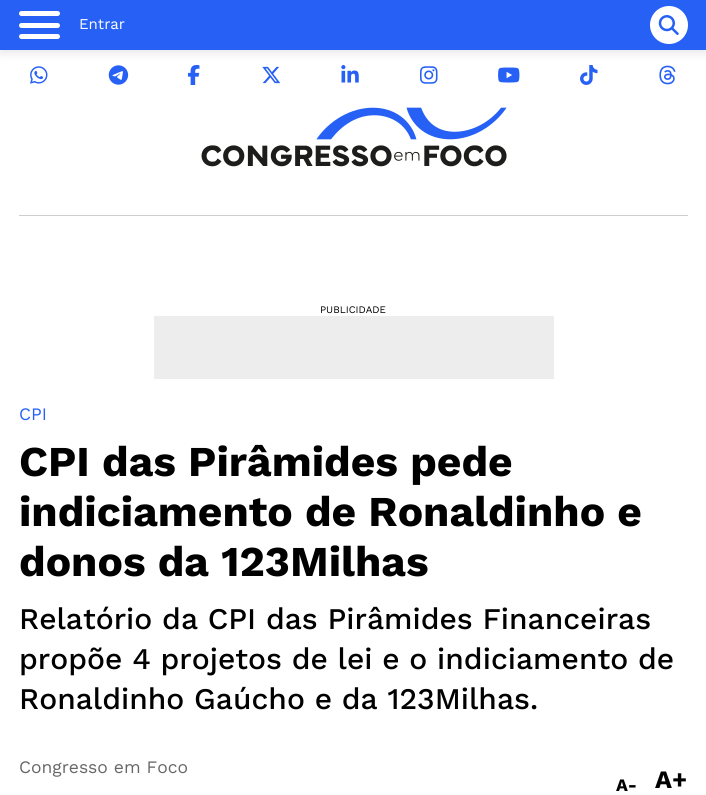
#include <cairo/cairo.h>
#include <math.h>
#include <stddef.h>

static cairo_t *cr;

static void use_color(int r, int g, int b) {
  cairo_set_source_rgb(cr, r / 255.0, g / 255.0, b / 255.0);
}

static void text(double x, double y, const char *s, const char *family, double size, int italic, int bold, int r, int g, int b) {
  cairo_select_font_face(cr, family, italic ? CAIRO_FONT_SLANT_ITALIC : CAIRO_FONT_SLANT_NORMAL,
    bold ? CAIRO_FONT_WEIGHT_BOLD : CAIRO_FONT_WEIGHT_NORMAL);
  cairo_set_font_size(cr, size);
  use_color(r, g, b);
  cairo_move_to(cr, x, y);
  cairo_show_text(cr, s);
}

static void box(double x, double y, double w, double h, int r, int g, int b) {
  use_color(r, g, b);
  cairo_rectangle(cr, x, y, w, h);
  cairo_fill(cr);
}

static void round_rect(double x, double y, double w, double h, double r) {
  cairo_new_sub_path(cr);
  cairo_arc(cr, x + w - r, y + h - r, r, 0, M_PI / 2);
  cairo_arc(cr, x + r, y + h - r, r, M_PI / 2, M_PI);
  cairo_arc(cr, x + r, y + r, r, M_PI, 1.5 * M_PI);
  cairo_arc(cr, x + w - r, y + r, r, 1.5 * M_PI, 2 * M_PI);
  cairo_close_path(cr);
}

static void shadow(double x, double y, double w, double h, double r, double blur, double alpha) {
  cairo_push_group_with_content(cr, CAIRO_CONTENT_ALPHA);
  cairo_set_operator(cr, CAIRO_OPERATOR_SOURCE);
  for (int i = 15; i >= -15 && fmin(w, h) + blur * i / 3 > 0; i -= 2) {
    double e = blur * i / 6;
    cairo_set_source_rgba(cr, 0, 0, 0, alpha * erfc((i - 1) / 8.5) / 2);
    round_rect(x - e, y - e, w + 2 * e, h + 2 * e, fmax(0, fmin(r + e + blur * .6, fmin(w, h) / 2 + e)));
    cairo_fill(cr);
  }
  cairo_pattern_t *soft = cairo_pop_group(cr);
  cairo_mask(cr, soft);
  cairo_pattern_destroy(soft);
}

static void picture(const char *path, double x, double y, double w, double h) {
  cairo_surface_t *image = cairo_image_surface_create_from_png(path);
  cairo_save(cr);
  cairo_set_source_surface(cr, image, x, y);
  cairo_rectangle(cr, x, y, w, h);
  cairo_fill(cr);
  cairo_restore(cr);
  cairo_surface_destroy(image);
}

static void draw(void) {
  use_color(255, 255, 255);
  cairo_paint(cr);
  picture("img_02.png", 30, 66, 18, 18);
  picture("img_03.png", 108, 65, 21, 20);
  picture("img_04.png", 188, 65, 12, 20);
  picture("img_05.png", 262, 66, 19, 18);
  picture("img_06.png", 341, 65, 18, 18);
  picture("img_07.png", 420, 66, 18, 18);
  picture("img_09.png", 580, 65, 18, 20);
  picture("img_10.png", 659, 65, 17, 20);
  use_color(122, 122, 122);
  shadow(0, 4, 706, 50, 0, 4, 0.16);
  box(0, 0, 706, 50, 38, 96, 245);
  use_color(255, 255, 255);
  round_rect(19, 11, 41, 5, 2.5);
  cairo_fill(cr);
  round_rect(19, 23, 41, 5, 2.5);
  cairo_fill(cr);
  round_rect(19, 34, 41, 5, 2.5);
  cairo_fill(cr);
  cairo_arc(cr, 669, 25, 19, 0, 2 * M_PI);
  cairo_fill(cr);
  picture("img_01.png", 658, 15, 21, 20);
  picture("img_08.png", 498, 67, 22, 16);
  picture("img_11.png", 201, 107, 306, 60);
  box(19, 215, 669, 1, 206, 206, 206);
  box(154, 316, 400, 63, 237, 237, 237);
  text(79, 29, "Entrar", "Work Sans", 15, 0, 0, 255, 255, 255);
  text(320, 313, "PUBLICIDADE", "Work Sans", 10, 0, 0, 0, 0, 0);
  text(19, 420, "CPI", "Work Sans", 17.5, 0, 0, 38, 96, 245);
  text(19, 476, "CPI das Pirâmides pede", "Work Sans", 42.5, 0, 1, 0, 0, 0);
  text(19, 526, "indiciamento de Ronaldinho e", "Work Sans", 42.5, 0, 1, 0, 0, 0);
  text(19, 576, "donos da 123Milhas", "Work Sans", 42.5, 0, 1, 0, 0, 0);
  text(19, 629, "Relatório da CPI das Pirâmides Financeiras", "Work Sans Medium", 30, 0, 0, 0, 0, 0);
  text(19, 669, "propõe 4 projetos de lei e o indiciamento de", "Work Sans Medium", 30, 0, 0, 0, 0, 0);
  text(19, 709, "Ronaldinho Gaúcho e da 123Milhas.", "Work Sans Medium", 30, 0, 0, 0, 0, 0);
  text(19, 773, "Congresso em Foco", "Work Sans", 17.5, 0, 0, 103, 103, 103);
  text(616, 791, "A-", "Work Sans", 17.5, 0, 1, 0, 0, 0);
  text(655, 788, "A+", "Work Sans", 25, 0, 1, 0, 0, 0);
}

int main(void) {
  cairo_surface_t *surface = cairo_image_surface_create(CAIRO_FORMAT_RGB24, 706, 795);
  cr = cairo_create(surface);
  cairo_font_options_t *options = cairo_font_options_create();
  cairo_font_options_set_hint_metrics(options, CAIRO_HINT_METRICS_OFF);
  cairo_font_options_set_hint_style(options, CAIRO_HINT_STYLE_NONE);
  cairo_set_font_options(cr, options);
  cairo_set_miter_limit(cr, 4);
  draw();
  cairo_surface_write_to_png(surface, "out.png");
  cairo_font_options_destroy(options);
  cairo_destroy(cr);
  cairo_surface_destroy(surface);
  return 0;
}
